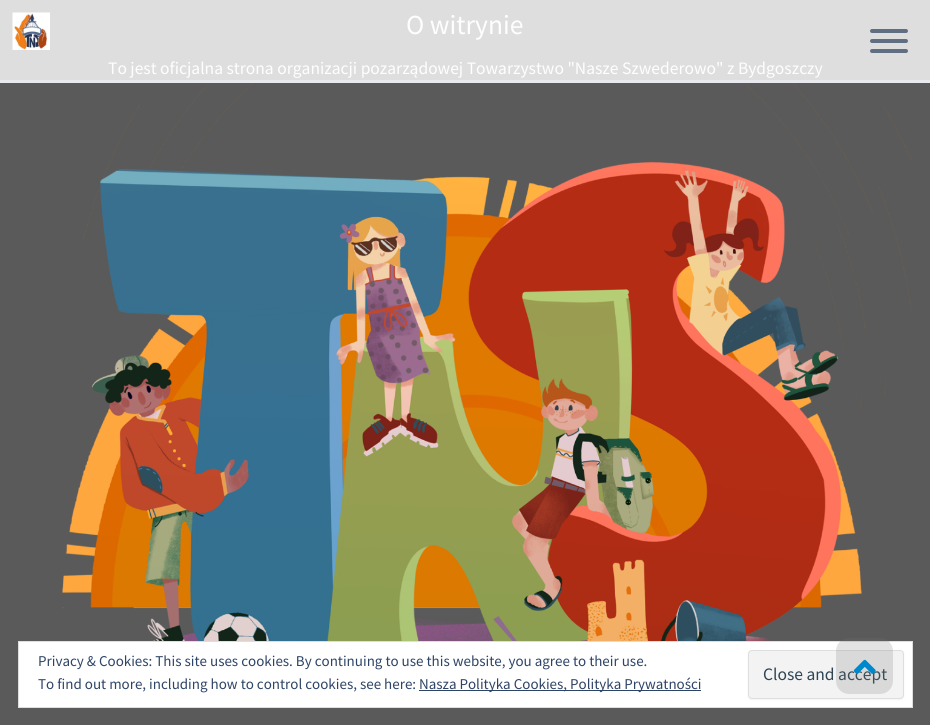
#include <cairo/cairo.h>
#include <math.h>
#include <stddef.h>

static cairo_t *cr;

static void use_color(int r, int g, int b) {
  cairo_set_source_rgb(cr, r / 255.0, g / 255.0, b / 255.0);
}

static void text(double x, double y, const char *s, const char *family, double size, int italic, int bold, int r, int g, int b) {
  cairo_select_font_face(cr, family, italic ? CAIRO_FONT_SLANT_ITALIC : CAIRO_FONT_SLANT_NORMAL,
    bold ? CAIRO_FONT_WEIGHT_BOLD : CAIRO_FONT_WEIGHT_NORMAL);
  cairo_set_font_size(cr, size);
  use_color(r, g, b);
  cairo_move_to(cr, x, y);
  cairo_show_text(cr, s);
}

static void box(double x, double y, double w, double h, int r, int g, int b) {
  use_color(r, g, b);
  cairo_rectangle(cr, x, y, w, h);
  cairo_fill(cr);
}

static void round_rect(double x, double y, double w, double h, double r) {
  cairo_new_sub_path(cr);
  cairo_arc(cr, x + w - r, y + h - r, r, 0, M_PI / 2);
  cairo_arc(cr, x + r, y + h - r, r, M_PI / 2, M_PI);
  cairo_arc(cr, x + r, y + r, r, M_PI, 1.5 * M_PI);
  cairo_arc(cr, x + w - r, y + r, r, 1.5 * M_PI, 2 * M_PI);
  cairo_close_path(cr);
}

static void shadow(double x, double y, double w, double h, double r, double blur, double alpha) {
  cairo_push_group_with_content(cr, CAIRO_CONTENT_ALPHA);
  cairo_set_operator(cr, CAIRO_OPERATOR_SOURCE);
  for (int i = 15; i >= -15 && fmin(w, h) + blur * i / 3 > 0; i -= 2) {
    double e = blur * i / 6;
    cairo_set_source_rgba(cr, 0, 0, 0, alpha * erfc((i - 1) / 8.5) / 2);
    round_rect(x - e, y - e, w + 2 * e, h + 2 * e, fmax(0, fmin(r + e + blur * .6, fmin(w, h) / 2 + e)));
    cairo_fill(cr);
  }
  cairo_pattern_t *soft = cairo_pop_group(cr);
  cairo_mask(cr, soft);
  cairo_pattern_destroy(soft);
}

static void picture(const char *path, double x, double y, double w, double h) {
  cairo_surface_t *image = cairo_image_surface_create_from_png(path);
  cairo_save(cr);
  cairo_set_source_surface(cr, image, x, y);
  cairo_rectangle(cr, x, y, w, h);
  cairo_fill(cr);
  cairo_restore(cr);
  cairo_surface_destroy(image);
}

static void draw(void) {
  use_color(90, 90, 90);
  cairo_paint(cr);
  box(0, 80, 930, 3, 233, 234, 238);
  box(0, 0, 930, 80, 222, 222, 222);
  picture("img_01.png", 12, 12, 38, 38);
  use_color(95, 111, 129);
  round_rect(870, 29, 38, 4, 2);
  cairo_fill(cr);
  round_rect(870, 39, 38, 4, 2);
  cairo_fill(cr);
  round_rect(870, 49, 38, 4, 2);
  cairo_fill(cr);
  picture("img_02.png", 62, 83, 850, 558);
  use_color(255, 255, 255);
  cairo_rectangle(cr, 18.5, 641.5, 894, 66);
  cairo_fill_preserve(cr);
  use_color(222, 222, 222);
  cairo_set_line_width(cr, 1);
  cairo_stroke(cr);
  box(419, 690, 282, 1, 46, 68, 103);
  use_color(0, 0, 0);
  shadow(748, 651, 156, 49, 4, 1, 0.05);
  use_color(243, 243, 243);
  round_rect(748.5, 650.5, 155, 48, 3.5);
  cairo_fill_preserve(cr);
  use_color(222, 222, 222);
  cairo_stroke(cr);
  text(406, 34, "O witrynie", "Source Sans Pro", 27.5, 0, 0, 254, 254, 254);
  text(108, 74, "To jest oficjalna strona organizacji pozarządowej Towarzystwo \"Nasze Szwederowo\" z Bydgoszczy", "Source Sans Pro", 17.5, 0, 0, 254, 254, 254);
  text(38, 666, "Privacy & Cookies: This site uses cookies. By continuing to use this website, you agree to their use.", "Source Sans Pro", 15, 0, 0, 46, 68, 103);
  text(38, 689, "To find out more, including how to control cookies, see here:", "Source Sans Pro", 15, 0, 0, 46, 68, 103);
  text(419, 689, "Nasza Polityka Cookies, Polityka Prywatności", "Source Sans Pro", 15, 0, 0, 46, 68, 103);
  text(763, 680, "Close and accept", "Source Sans Pro", 17.5, 0, 0, 46, 68, 83);
  cairo_set_source_rgba(cr, 0.467, 0.467, 0.467, 0.2);
  round_rect(836, 638, 57, 56, 13);
  cairo_fill(cr);
  picture("img_03.png", 853, 659, 23, 15);
}

int main(void) {
  cairo_surface_t *surface = cairo_image_surface_create(CAIRO_FORMAT_RGB24, 930, 725);
  cr = cairo_create(surface);
  cairo_font_options_t *options = cairo_font_options_create();
  cairo_font_options_set_hint_metrics(options, CAIRO_HINT_METRICS_OFF);
  cairo_font_options_set_hint_style(options, CAIRO_HINT_STYLE_NONE);
  cairo_set_font_options(cr, options);
  cairo_set_miter_limit(cr, 4);
  draw();
  cairo_surface_write_to_png(surface, "out.png");
  cairo_font_options_destroy(options);
  cairo_destroy(cr);
  cairo_surface_destroy(surface);
  return 0;
}
